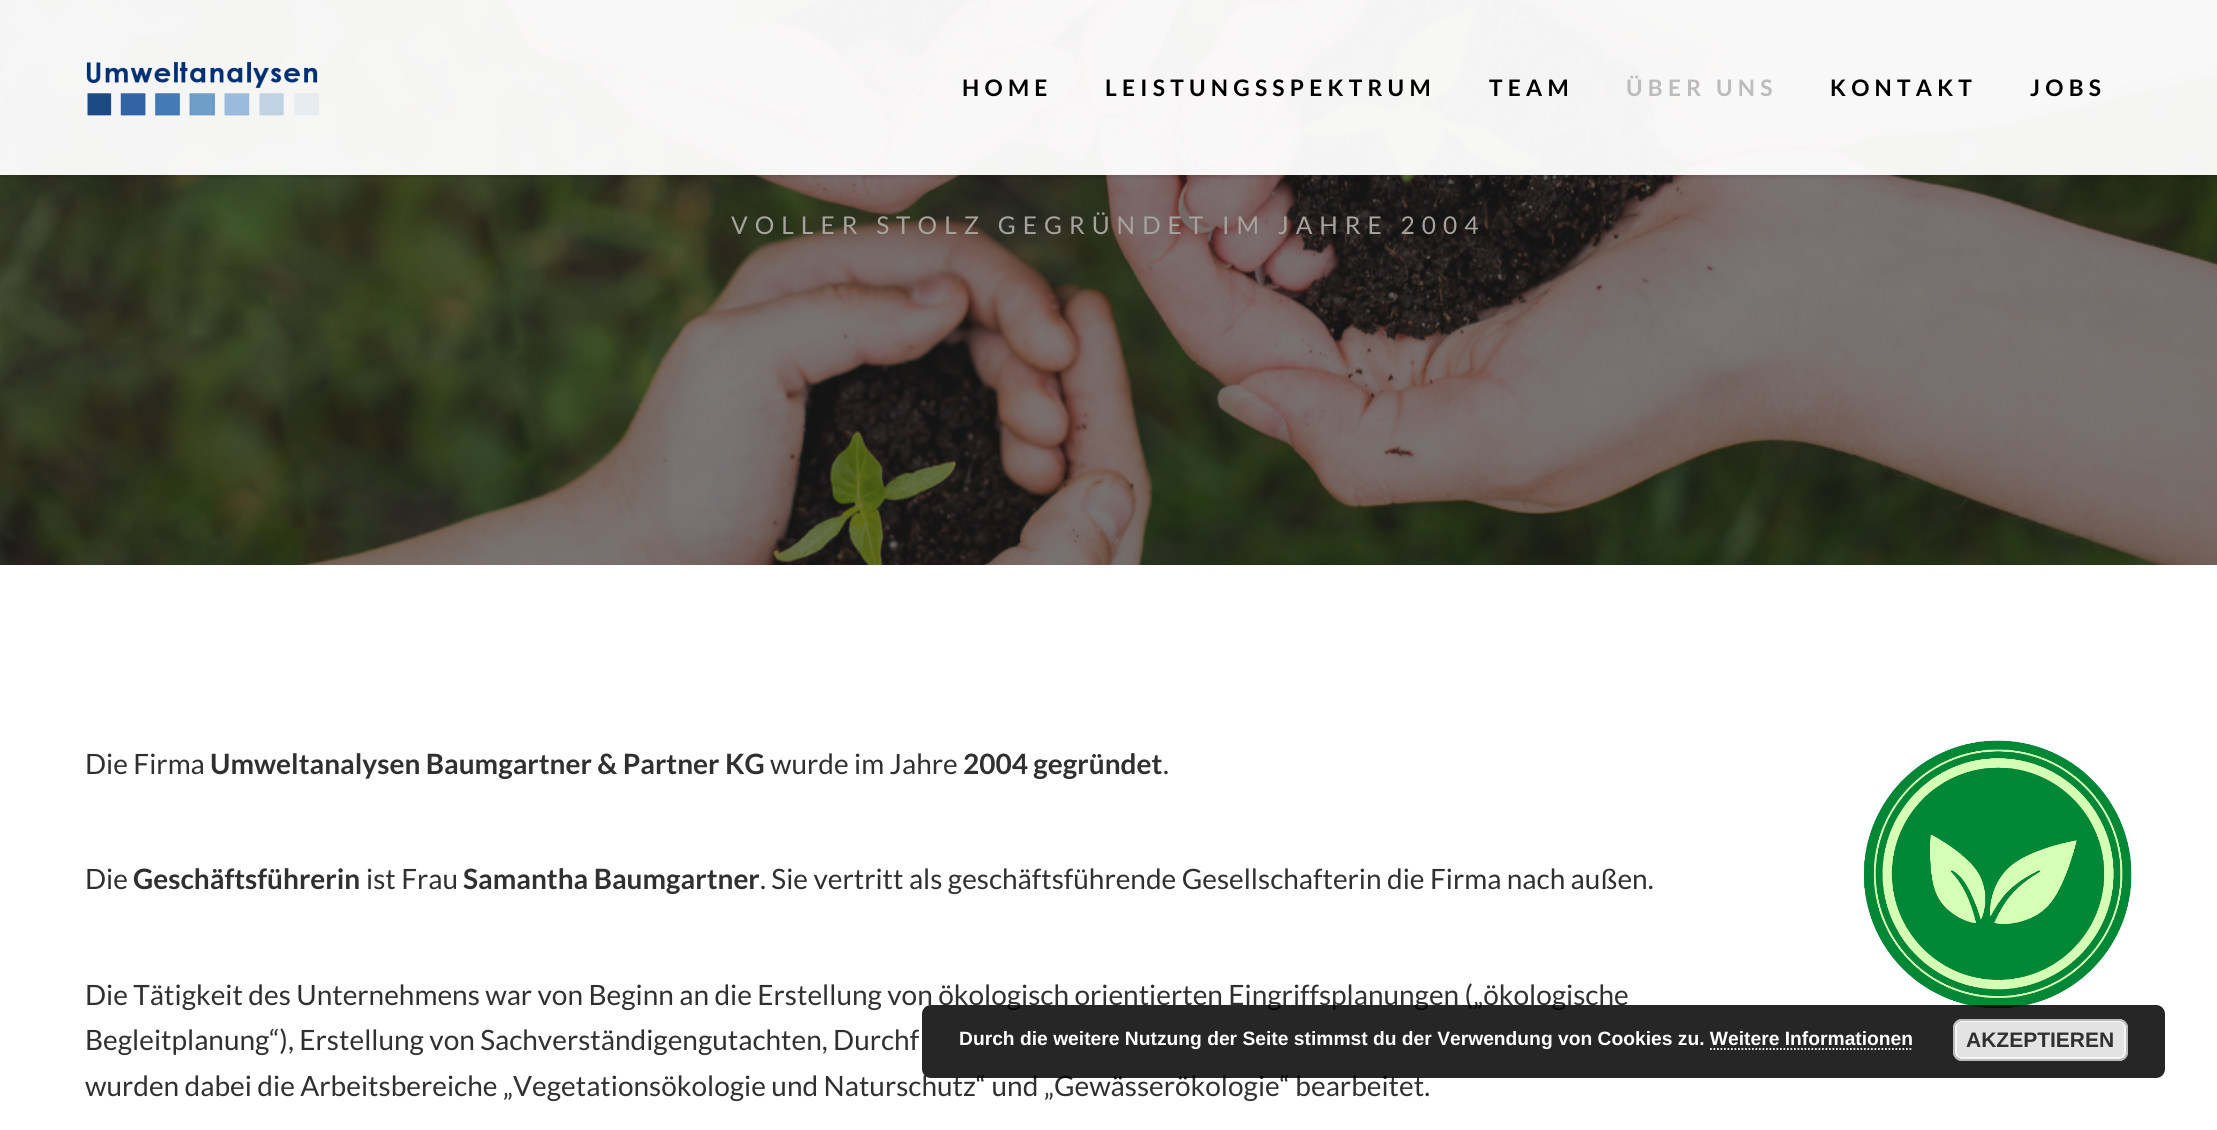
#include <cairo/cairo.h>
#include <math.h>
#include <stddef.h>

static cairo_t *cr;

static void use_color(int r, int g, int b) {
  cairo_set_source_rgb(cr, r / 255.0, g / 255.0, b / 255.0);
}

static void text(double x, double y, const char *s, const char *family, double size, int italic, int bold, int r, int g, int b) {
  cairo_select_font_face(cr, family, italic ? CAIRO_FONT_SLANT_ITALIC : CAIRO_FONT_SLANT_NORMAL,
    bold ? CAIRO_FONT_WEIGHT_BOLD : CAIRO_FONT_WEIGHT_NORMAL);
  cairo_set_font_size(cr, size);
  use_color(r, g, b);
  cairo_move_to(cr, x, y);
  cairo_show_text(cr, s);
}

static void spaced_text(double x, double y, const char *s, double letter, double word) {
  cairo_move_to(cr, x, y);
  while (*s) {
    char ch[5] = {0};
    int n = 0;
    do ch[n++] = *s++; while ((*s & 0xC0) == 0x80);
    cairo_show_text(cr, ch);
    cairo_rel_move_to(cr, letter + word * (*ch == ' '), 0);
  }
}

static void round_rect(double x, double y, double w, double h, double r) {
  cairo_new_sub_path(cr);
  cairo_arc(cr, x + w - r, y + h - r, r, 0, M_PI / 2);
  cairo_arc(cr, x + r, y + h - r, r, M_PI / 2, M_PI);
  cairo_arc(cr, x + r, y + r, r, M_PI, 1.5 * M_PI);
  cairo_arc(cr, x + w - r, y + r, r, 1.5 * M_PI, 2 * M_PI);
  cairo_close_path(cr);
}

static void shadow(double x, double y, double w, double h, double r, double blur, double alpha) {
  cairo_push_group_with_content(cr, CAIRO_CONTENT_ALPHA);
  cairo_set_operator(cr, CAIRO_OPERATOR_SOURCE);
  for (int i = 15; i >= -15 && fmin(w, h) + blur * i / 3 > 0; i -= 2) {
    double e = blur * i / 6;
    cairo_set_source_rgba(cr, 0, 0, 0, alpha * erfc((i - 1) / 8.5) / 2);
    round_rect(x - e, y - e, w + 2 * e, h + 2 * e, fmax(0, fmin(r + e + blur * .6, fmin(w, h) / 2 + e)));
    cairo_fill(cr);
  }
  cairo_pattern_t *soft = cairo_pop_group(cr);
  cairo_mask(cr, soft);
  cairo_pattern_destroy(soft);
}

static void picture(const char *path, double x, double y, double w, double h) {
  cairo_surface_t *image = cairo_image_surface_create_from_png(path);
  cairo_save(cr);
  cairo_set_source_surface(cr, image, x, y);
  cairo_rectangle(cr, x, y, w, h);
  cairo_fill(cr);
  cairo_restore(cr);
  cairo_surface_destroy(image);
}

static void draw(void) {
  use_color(255, 255, 255);
  cairo_paint(cr);
  picture("img_02.png", 0, 0, 2217, 565);
  cairo_save(cr);
  cairo_rectangle(cr, 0, 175, 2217, 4);
  cairo_clip(cr);
  use_color(0, 0, 0);
  shadow(0, 0, 2217, 175, 0, 3.5, 0.2);
  cairo_restore(cr);
  cairo_set_source_rgba(cr, 1, 1, 1, 0.95);
  cairo_rectangle(cr, 0, 0, 2217, 175);
  cairo_fill(cr);
  picture("img_01.png", 86, 62, 233, 54);
  picture("img_03.png", 1863, 740, 269, 269);
  cairo_select_font_face(cr, "Lato", CAIRO_FONT_SLANT_NORMAL, CAIRO_FONT_WEIGHT_BOLD);
  cairo_set_font_size(cr, 22.75);
  use_color(0, 0, 0);
  spaced_text(962, 96, "HOME", 5.25, 0);
  spaced_text(1105, 96, "LEISTUNGSSPEKTRUM", 5.25, 0);
  spaced_text(1489, 96, "TEAM", 5.25, 0);
  use_color(188, 188, 188);
  spaced_text(1626, 96, "ÜBER UNS", 5.25, 0);
  use_color(0, 0, 0);
  spaced_text(1830, 96, "KONTAKT", 5.25, 0);
  spaced_text(2030, 96, "JOBS", 5.25, 0);
  cairo_select_font_face(cr, "Lato", CAIRO_FONT_SLANT_NORMAL, CAIRO_FONT_WEIGHT_NORMAL);
  cairo_set_font_size(cr, 24.5);
  use_color(166, 163, 158);
  spaced_text(731, 234, "VOLLER STOLZ GEGRÜNDET IM JAHRE 2004", 7, 0);
  text(85, 774, "Die Firma", "Lato", 28, 0, 0, 48, 48, 48);
  text(210, 774, "Umweltanalysen Baumgartner & Partner KG", "Lato", 28, 0, 1, 48, 48, 48);
  text(770, 774, "wurde im Jahre", "Lato", 28, 0, 0, 48, 48, 48);
  text(963, 774, "2004 gegründet", "Lato", 28, 0, 1, 48, 48, 48);
  text(1163, 774, ".", "Lato", 28, 0, 0, 48, 48, 48);
  text(85, 889, "Die", "Lato", 28, 0, 0, 48, 48, 48);
  text(133, 889, "Geschäftsführerin", "Lato", 28, 0, 1, 48, 48, 48);
  text(366, 889, "ist Frau", "Lato", 28, 0, 0, 48, 48, 48);
  text(463, 889, "Samantha Baumgartner", "Lato", 28, 0, 1, 48, 48, 48);
  text(760, 889, ". Sie vertritt als geschäftsführende Gesellschafterin die Firma nach außen.", "Lato", 28, 0, 0, 48, 48, 48);
  text(85, 1005, "Die Tätigkeit des Unternehmens war von Beginn an die Erstellung von ökologisch orientierten Eingriffsplanungen („ökologische", "Lato", 28, 0, 0, 48, 48, 48);
  text(85, 1050, "Begleitplanung“), Erstellung von Sachverständigengutachten, Durchf", "Lato", 28, 0, 0, 48, 48, 48);
  text(85, 1096, "wurden dabei die Arbeitsbereiche „Vegetationsökologie und Naturschutz“ und „Gewässerökologie“ bearbeitet.", "Lato", 28, 0, 0, 48, 48, 48);
  cairo_set_source_rgba(cr, 0, 0, 0, 0.85);
  round_rect(922, 1005, 1243, 73, 9);
  cairo_fill(cr);
  text(959, 1045, "Durch die weitere Nutzung der Seite stimmst du der Verwendung von Cookies zu. Weitere Informationen", "Liberation Sans", 19.25, 0, 1, 255, 255, 255);
  use_color(227, 227, 227);
  round_rect(1953, 1019, 175, 42, 9);
  cairo_fill(cr);
  round_rect(1956, 1021, 169, 37, 6);
  use_color(246, 246, 246);
  cairo_stroke(cr);
  round_rect(1954, 1020, 173, 40, 8);
  use_color(187, 187, 187);
  cairo_stroke(cr);
  text(1966, 1047, "AKZEPTIEREN", "Liberation Sans", 21, 0, 1, 48, 48, 48);
  cairo_new_path(cr);
  cairo_move_to(cr, 1710, 1049);
  cairo_line_to(cr, 1913, 1049);
  use_color(255, 255, 255);
  cairo_set_line_width(cr, 1.8);
  cairo_set_dash(cr, (double[]){1.75, 1.75}, 2, 0);
  cairo_stroke(cr);
}

int main(void) {
  cairo_surface_t *surface = cairo_image_surface_create(CAIRO_FORMAT_RGB24, 2217, 1130);
  cr = cairo_create(surface);
  cairo_font_options_t *options = cairo_font_options_create();
  cairo_font_options_set_hint_metrics(options, CAIRO_HINT_METRICS_OFF);
  cairo_font_options_set_hint_style(options, CAIRO_HINT_STYLE_NONE);
  cairo_set_font_options(cr, options);
  cairo_set_miter_limit(cr, 4);
  draw();
  cairo_surface_write_to_png(surface, "out.png");
  cairo_font_options_destroy(options);
  cairo_destroy(cr);
  cairo_surface_destroy(surface);
  return 0;
}
